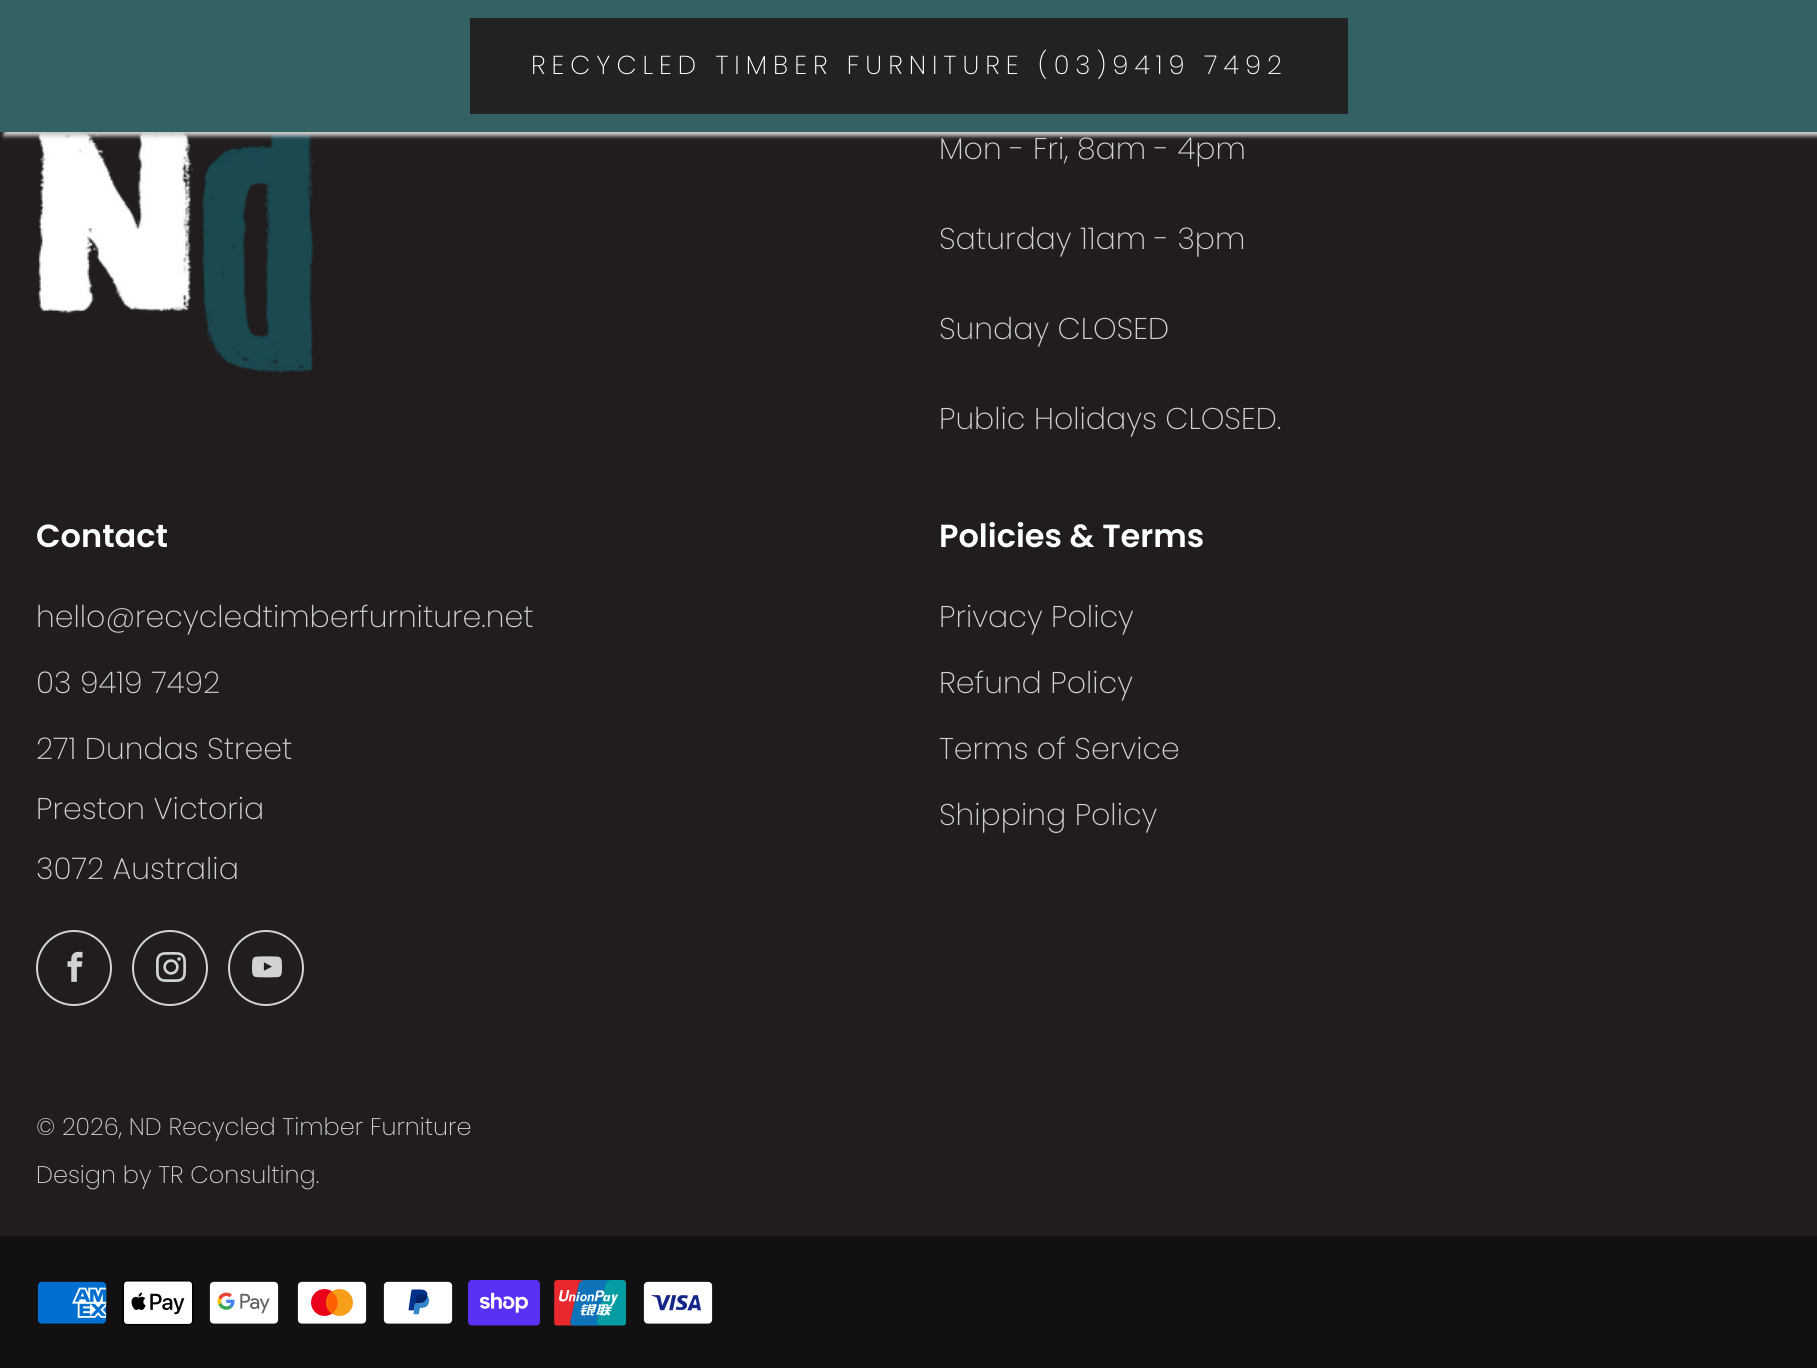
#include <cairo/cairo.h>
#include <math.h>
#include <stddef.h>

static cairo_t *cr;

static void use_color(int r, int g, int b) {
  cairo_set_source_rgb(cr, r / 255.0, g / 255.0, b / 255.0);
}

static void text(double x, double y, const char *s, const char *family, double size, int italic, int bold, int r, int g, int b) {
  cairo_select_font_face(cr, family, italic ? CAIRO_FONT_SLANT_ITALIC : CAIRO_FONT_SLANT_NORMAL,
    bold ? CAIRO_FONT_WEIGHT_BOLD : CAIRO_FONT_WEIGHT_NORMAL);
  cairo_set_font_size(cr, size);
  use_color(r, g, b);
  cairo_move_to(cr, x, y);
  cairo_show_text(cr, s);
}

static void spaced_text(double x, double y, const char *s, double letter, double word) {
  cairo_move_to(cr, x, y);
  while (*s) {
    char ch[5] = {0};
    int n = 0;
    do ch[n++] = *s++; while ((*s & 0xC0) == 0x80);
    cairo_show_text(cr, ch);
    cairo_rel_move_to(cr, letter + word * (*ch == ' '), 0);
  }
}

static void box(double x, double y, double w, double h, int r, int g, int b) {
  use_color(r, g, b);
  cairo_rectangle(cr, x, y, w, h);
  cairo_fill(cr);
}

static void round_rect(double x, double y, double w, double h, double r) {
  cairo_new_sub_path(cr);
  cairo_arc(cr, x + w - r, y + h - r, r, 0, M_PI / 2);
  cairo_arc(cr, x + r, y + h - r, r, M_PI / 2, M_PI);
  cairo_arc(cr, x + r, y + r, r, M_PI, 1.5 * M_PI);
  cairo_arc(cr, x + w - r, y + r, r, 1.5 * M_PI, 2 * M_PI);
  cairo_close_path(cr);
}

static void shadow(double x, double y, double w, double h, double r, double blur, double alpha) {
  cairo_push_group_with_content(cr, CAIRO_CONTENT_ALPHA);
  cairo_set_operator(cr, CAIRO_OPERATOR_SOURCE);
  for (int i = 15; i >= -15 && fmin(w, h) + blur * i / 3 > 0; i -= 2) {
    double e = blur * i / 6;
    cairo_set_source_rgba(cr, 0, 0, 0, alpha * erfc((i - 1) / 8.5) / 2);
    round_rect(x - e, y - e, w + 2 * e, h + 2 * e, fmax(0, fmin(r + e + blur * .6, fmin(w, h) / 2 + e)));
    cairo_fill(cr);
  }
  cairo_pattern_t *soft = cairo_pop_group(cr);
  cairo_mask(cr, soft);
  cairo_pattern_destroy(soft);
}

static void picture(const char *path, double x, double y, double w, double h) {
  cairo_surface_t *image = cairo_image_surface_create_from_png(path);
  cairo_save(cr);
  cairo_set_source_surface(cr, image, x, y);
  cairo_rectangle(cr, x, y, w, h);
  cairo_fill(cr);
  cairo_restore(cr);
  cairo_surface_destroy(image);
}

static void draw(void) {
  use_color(33, 28, 29);
  cairo_paint(cr);
  picture("img_01.png", 37, 132, 277, 242);
  use_color(204, 204, 204);
  shadow(4, 4, 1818, 132, 0, 2, 1);
  box(0, 0, 1817, 132, 51, 97, 100);
  box(470, 18, 878, 96, 34, 34, 34);
  cairo_arc(cr, 74, 968, 37, 0, 2 * M_PI);
  use_color(211, 210, 210);
  cairo_stroke(cr);
  picture("img_02.png", 67, 951, 16, 31);
  cairo_arc(cr, 170, 968, 37, 0, 2 * M_PI);
  cairo_stroke(cr);
  picture("img_03.png", 156, 952, 30, 30);
  cairo_arc(cr, 266, 968, 37, 0, 2 * M_PI);
  cairo_stroke(cr);
  picture("img_04.png", 252, 956, 30, 22);
  box(0, 1236, 1817, 132, 19, 16, 17);
  picture("img_05.png", 37, 1281, 70, 43);
  picture("img_06.png", 122, 1280, 72, 46);
  picture("img_07.png", 209, 1281, 70, 43);
  picture("img_08.png", 297, 1281, 70, 43);
  picture("img_09.png", 383, 1281, 70, 43);
  picture("img_10.png", 468, 1280, 72, 46);
  picture("img_11.png", 554, 1280, 72, 46);
  picture("img_12.png", 643, 1281, 70, 43);
  cairo_select_font_face(cr, "Poppins Light", CAIRO_FONT_SLANT_NORMAL, CAIRO_FONT_WEIGHT_NORMAL);
  cairo_set_font_size(cr, 26);
  use_color(255, 255, 255);
  spaced_text(531, 74, "RECYCLED TIMBER FURNITURE (03)9419 7492", 6, 0);
  text(939, 159, "Mon - Fri, 8am - 4pm", "Poppins Light", 30, 0, 0, 211, 210, 210);
  text(939, 249, "Saturday 11am - 3pm", "Poppins Light", 30, 0, 0, 211, 210, 210);
  text(939, 339, "Sunday CLOSED", "Poppins Light", 30, 0, 0, 211, 210, 210);
  text(939, 429, "Public Holidays CLOSED.", "Poppins Light", 30, 0, 0, 211, 210, 210);
  text(36, 547, "Contact", "Poppins SemiBold", 32, 0, 0, 255, 255, 255);
  text(36, 627, "hello@recycledtimberfurniture.net", "Poppins Light", 30, 0, 0, 211, 210, 210);
  text(36, 693, "03 9419 7492", "Poppins Light", 30, 0, 0, 211, 210, 210);
  text(36, 759, "271 Dundas Street", "Poppins Light", 30, 0, 0, 211, 210, 210);
  text(36, 819, "Preston Victoria", "Poppins Light", 30, 0, 0, 211, 210, 210);
  text(36, 879, "3072 Australia", "Poppins Light", 30, 0, 0, 211, 210, 210);
  text(939, 547, "Policies & Terms", "Poppins SemiBold", 32, 0, 0, 255, 255, 255);
  text(939, 627, "Privacy Policy", "Poppins Light", 30, 0, 0, 211, 210, 210);
  text(939, 693, "Refund Policy", "Poppins Light", 30, 0, 0, 211, 210, 210);
  text(939, 759, "Terms of Service", "Poppins Light", 30, 0, 0, 211, 210, 210);
  text(939, 825, "Shipping Policy", "Poppins Light", 30, 0, 0, 211, 210, 210);
  text(36, 1135, "© 2026, ND Recycled Timber Furniture", "Poppins Light", 24, 0, 0, 211, 210, 210);
  text(36, 1183, "Design by TR Consulting.", "Poppins Light", 24, 0, 0, 211, 210, 210);
}

int main(void) {
  cairo_surface_t *surface = cairo_image_surface_create(CAIRO_FORMAT_RGB24, 1817, 1368);
  cr = cairo_create(surface);
  cairo_font_options_t *options = cairo_font_options_create();
  cairo_font_options_set_hint_metrics(options, CAIRO_HINT_METRICS_OFF);
  cairo_font_options_set_hint_style(options, CAIRO_HINT_STYLE_NONE);
  cairo_set_font_options(cr, options);
  cairo_set_miter_limit(cr, 4);
  draw();
  cairo_surface_write_to_png(surface, "out.png");
  cairo_font_options_destroy(options);
  cairo_destroy(cr);
  cairo_surface_destroy(surface);
  return 0;
}
